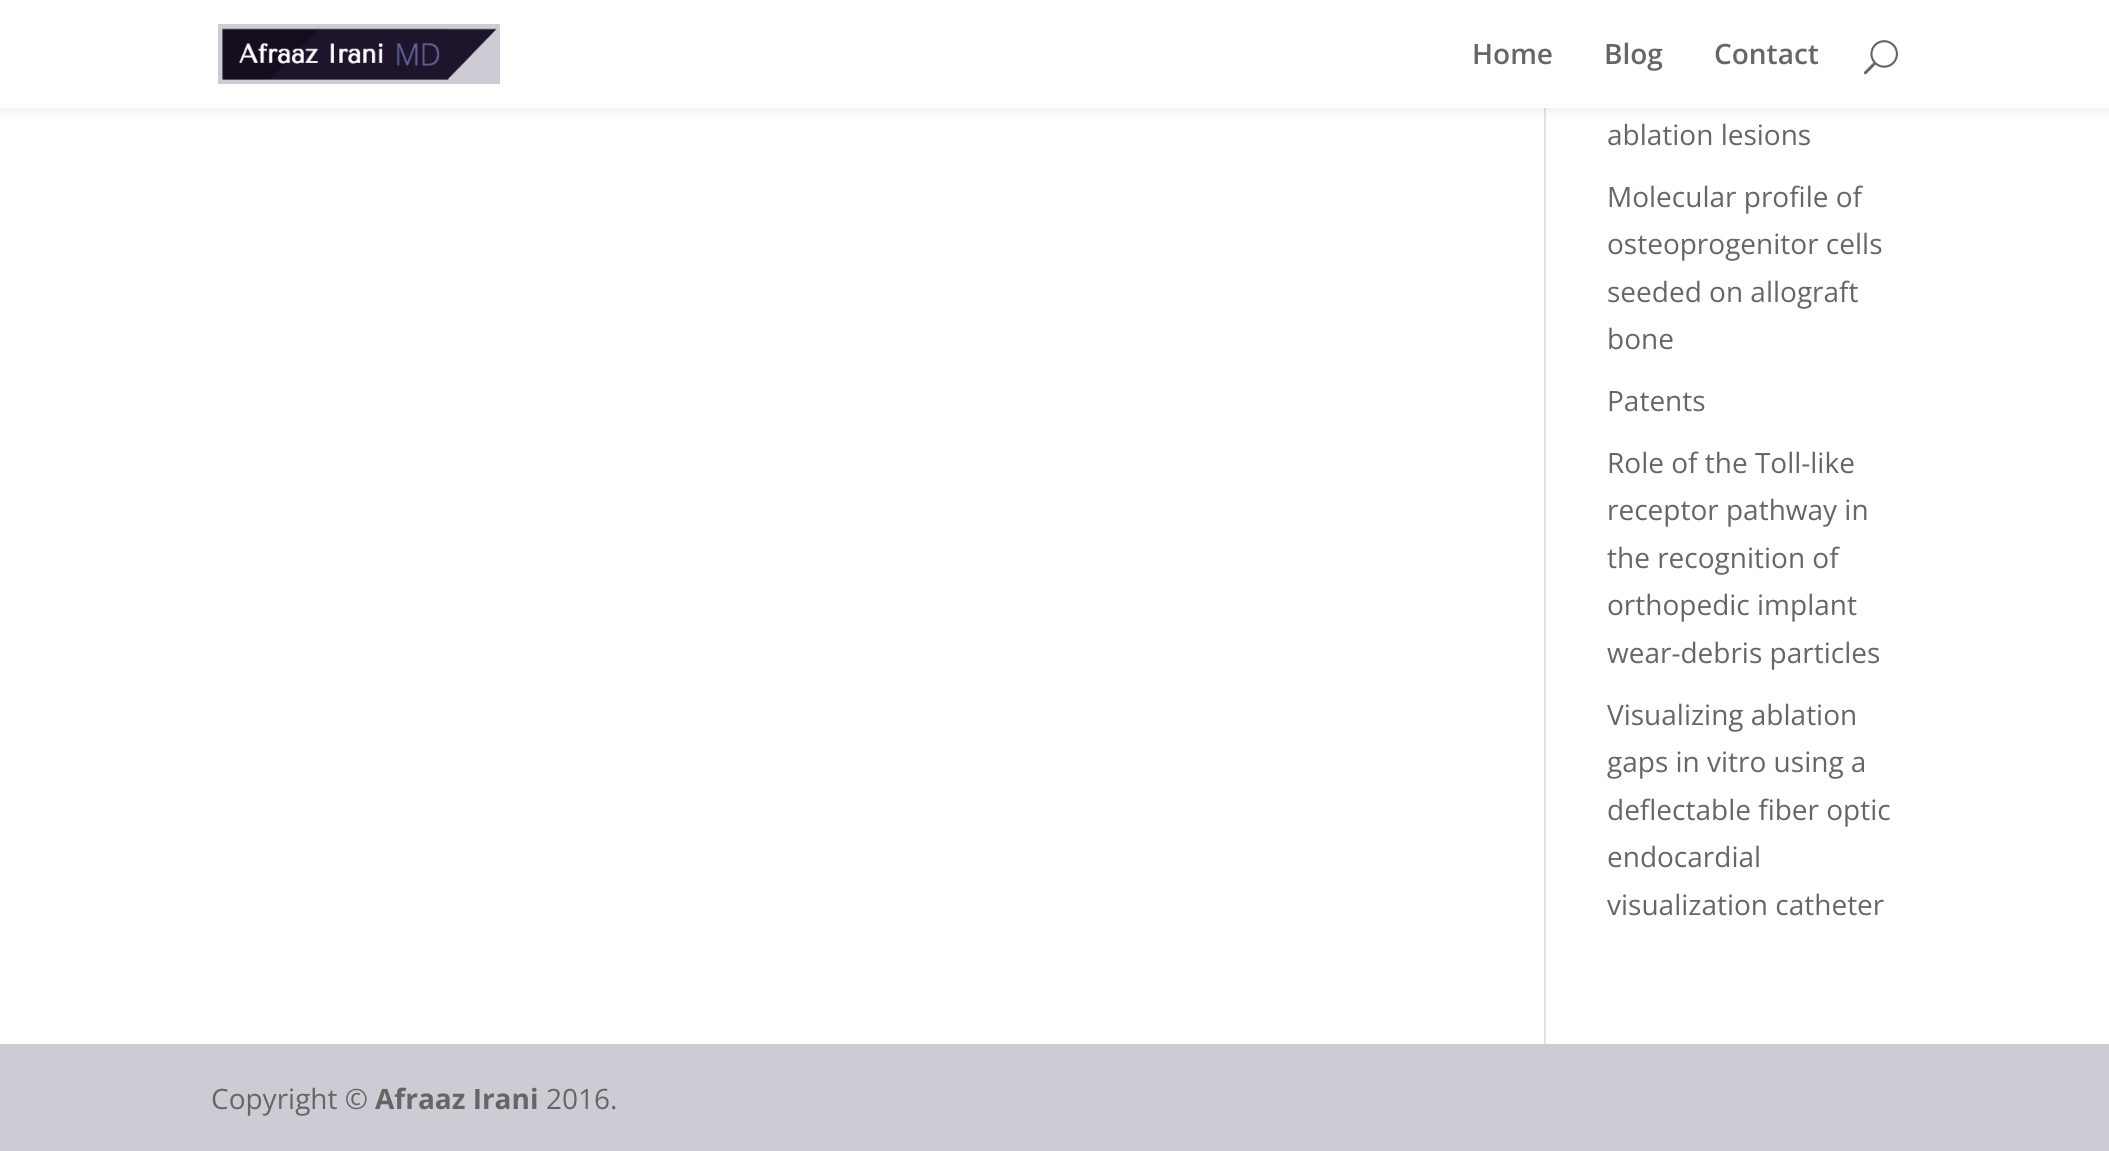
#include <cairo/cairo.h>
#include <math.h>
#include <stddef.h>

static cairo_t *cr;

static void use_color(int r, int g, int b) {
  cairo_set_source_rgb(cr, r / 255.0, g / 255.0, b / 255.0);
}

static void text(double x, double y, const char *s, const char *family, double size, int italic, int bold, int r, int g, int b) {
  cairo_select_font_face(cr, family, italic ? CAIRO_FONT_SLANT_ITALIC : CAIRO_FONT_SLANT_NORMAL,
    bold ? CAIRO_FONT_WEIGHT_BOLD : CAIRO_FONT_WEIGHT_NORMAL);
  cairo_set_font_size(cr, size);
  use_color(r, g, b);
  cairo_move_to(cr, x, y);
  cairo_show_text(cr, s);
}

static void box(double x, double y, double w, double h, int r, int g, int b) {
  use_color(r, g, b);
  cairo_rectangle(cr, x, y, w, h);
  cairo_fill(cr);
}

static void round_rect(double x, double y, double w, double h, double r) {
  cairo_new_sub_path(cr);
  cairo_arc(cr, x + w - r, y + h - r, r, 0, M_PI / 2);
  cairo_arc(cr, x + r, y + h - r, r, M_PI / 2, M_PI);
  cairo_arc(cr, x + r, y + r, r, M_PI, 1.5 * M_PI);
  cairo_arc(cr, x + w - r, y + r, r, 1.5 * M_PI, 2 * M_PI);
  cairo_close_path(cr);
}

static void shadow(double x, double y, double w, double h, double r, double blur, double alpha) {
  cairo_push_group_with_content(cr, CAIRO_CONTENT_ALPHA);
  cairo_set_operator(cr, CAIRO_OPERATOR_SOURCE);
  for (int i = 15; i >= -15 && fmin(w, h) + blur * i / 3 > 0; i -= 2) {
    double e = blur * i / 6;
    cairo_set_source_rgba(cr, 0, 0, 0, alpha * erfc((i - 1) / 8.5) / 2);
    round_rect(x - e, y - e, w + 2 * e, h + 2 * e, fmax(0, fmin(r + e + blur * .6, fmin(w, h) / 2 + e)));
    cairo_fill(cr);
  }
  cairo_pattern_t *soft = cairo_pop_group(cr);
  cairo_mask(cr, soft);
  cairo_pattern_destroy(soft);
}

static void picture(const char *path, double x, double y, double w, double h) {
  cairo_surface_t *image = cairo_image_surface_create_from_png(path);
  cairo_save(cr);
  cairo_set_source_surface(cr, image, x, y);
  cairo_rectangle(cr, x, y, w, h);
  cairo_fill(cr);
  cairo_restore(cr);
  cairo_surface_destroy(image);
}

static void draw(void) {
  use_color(255, 255, 255);
  cairo_paint(cr);
  box(1544, 108, 2, 936, 226, 226, 226);
  use_color(0, 0, 0);
  shadow(0, 0, 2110, 108, 0, 7, 0.1);
  box(0, 0, 2109, 108, 255, 255, 255);
  picture("img_01.png", 218, 24, 282, 60);
  picture("img_02.png", 1863, 40, 35, 35);
  box(0, 1044, 2109, 107, 205, 204, 213);
  text(1472, 64, "Home", "Open Sans SemiBold", 28, 0, 0, 102, 102, 102);
  text(1604, 64, "Blog", "Open Sans SemiBold", 28, 0, 0, 102, 102, 102);
  text(1714, 64, "Contact", "Open Sans SemiBold", 28, 0, 0, 102, 102, 102);
  text(1607, 145, "ablation lesions", "Open Sans", 28, 0, 0, 102, 102, 102);
  text(1607, 207, "Molecular profile of", "Open Sans", 28, 0, 0, 102, 102, 102);
  text(1607, 254, "osteoprogenitor cells", "Open Sans", 28, 0, 0, 102, 102, 102);
  text(1607, 302, "seeded on allograft", "Open Sans", 28, 0, 0, 102, 102, 102);
  text(1607, 349, "bone", "Open Sans", 28, 0, 0, 102, 102, 102);
  text(1607, 411, "Patents", "Open Sans", 28, 0, 0, 102, 102, 102);
  text(1607, 473, "Role of the Toll-like", "Open Sans", 28, 0, 0, 102, 102, 102);
  text(1607, 520, "receptor pathway in", "Open Sans", 28, 0, 0, 102, 102, 102);
  text(1607, 568, "the recognition of", "Open Sans", 28, 0, 0, 102, 102, 102);
  text(1607, 615, "orthopedic implant", "Open Sans", 28, 0, 0, 102, 102, 102);
  text(1607, 663, "wear-debris particles", "Open Sans", 28, 0, 0, 102, 102, 102);
  text(1607, 725, "Visualizing ablation", "Open Sans", 28, 0, 0, 102, 102, 102);
  text(1607, 772, "gaps in vitro using a", "Open Sans", 28, 0, 0, 102, 102, 102);
  text(1607, 820, "deflectable fiber optic", "Open Sans", 28, 0, 0, 102, 102, 102);
  text(1607, 867, "endocardial", "Open Sans", 28, 0, 0, 102, 102, 102);
  text(1607, 915, "visualization catheter", "Open Sans", 28, 0, 0, 102, 102, 102);
  text(211, 1109, "Copyright ©", "Open Sans", 28, 0, 0, 102, 102, 102);
  text(375, 1109, "Afraaz Irani", "Open Sans", 28, 0, 1, 102, 102, 102);
  text(546, 1109, "2016.", "Open Sans", 28, 0, 0, 102, 102, 102);
}

int main(void) {
  cairo_surface_t *surface = cairo_image_surface_create(CAIRO_FORMAT_RGB24, 2109, 1151);
  cr = cairo_create(surface);
  cairo_font_options_t *options = cairo_font_options_create();
  cairo_font_options_set_hint_metrics(options, CAIRO_HINT_METRICS_OFF);
  cairo_font_options_set_hint_style(options, CAIRO_HINT_STYLE_NONE);
  cairo_set_font_options(cr, options);
  cairo_set_miter_limit(cr, 4);
  draw();
  cairo_surface_write_to_png(surface, "out.png");
  cairo_font_options_destroy(options);
  cairo_destroy(cr);
  cairo_surface_destroy(surface);
  return 0;
}
